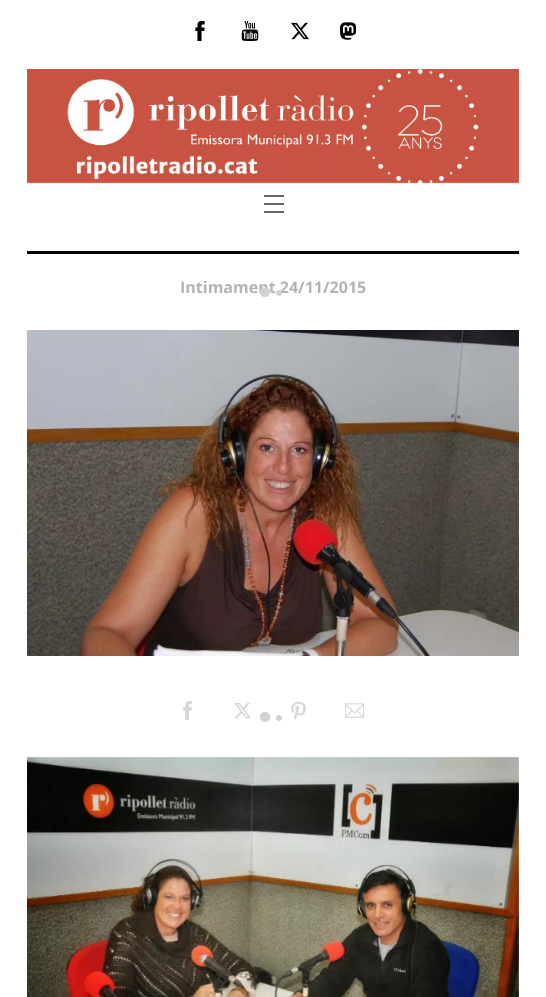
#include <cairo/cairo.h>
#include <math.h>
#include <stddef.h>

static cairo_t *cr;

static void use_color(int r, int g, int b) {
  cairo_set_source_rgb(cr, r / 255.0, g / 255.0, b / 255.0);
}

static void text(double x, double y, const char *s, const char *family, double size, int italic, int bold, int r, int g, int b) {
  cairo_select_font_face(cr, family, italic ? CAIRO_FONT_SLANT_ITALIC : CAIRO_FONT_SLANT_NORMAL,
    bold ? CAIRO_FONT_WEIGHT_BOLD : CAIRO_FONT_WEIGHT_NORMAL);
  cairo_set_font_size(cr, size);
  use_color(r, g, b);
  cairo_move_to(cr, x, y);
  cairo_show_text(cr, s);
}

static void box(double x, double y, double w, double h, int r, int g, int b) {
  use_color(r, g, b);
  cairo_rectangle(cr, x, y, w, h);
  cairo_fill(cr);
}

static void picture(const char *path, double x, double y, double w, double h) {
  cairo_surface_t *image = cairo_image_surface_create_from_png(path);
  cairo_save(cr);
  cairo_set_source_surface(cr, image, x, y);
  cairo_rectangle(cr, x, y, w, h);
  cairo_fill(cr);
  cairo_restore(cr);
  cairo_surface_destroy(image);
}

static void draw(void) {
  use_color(255, 255, 255);
  cairo_paint(cr);
  picture("img_01.png", 195, 21, 10, 20);
  picture("img_02.png", 241, 21, 18, 20);
  picture("img_03.png", 291, 22, 18, 18);
  picture("img_04.png", 340, 22, 16, 18);
  picture("img_05.png", 27, 69, 492, 115);
  box(264, 211, 20, 2, 102, 102, 102);
  box(264, 195, 20, 2, 102, 102, 102);
  box(264, 203, 20, 2, 102, 102, 102);
  box(27, 251, 492, 3, 0, 0, 0);
  picture("img_06.png", 27, 330, 492, 326);
  picture("img_07.png", 183, 701, 9, 19);
  picture("img_08.png", 234, 702, 17, 17);
  picture("img_09.png", 291, 701, 15, 19);
  picture("img_10.png", 345, 703, 19, 15);
  use_color(209, 209, 209);
  cairo_arc(cr, 265, 717, 5, 0, 2 * M_PI);
  cairo_fill(cr);
  cairo_arc(cr, 279, 718, 3, 0, 2 * M_PI);
  cairo_fill(cr);
  picture("img_11.png", 27, 756, 492, 241);
  text(180, 293, "Intimament 24/11/2015", "Open Sans", 16, 0, 1, 179, 179, 179);
  use_color(209, 209, 209);
  cairo_new_path(cr);
  cairo_arc(cr, 265, 292, 5, 0, 2 * M_PI);
  cairo_fill(cr);
  cairo_arc(cr, 279, 293, 3, 0, 2 * M_PI);
  cairo_fill(cr);
}

int main(void) {
  cairo_surface_t *surface = cairo_image_surface_create(CAIRO_FORMAT_RGB24, 546, 997);
  cr = cairo_create(surface);
  cairo_font_options_t *options = cairo_font_options_create();
  cairo_font_options_set_hint_metrics(options, CAIRO_HINT_METRICS_OFF);
  cairo_font_options_set_hint_style(options, CAIRO_HINT_STYLE_NONE);
  cairo_set_font_options(cr, options);
  cairo_set_miter_limit(cr, 4);
  draw();
  cairo_surface_write_to_png(surface, "out.png");
  cairo_font_options_destroy(options);
  cairo_destroy(cr);
  cairo_surface_destroy(surface);
  return 0;
}
